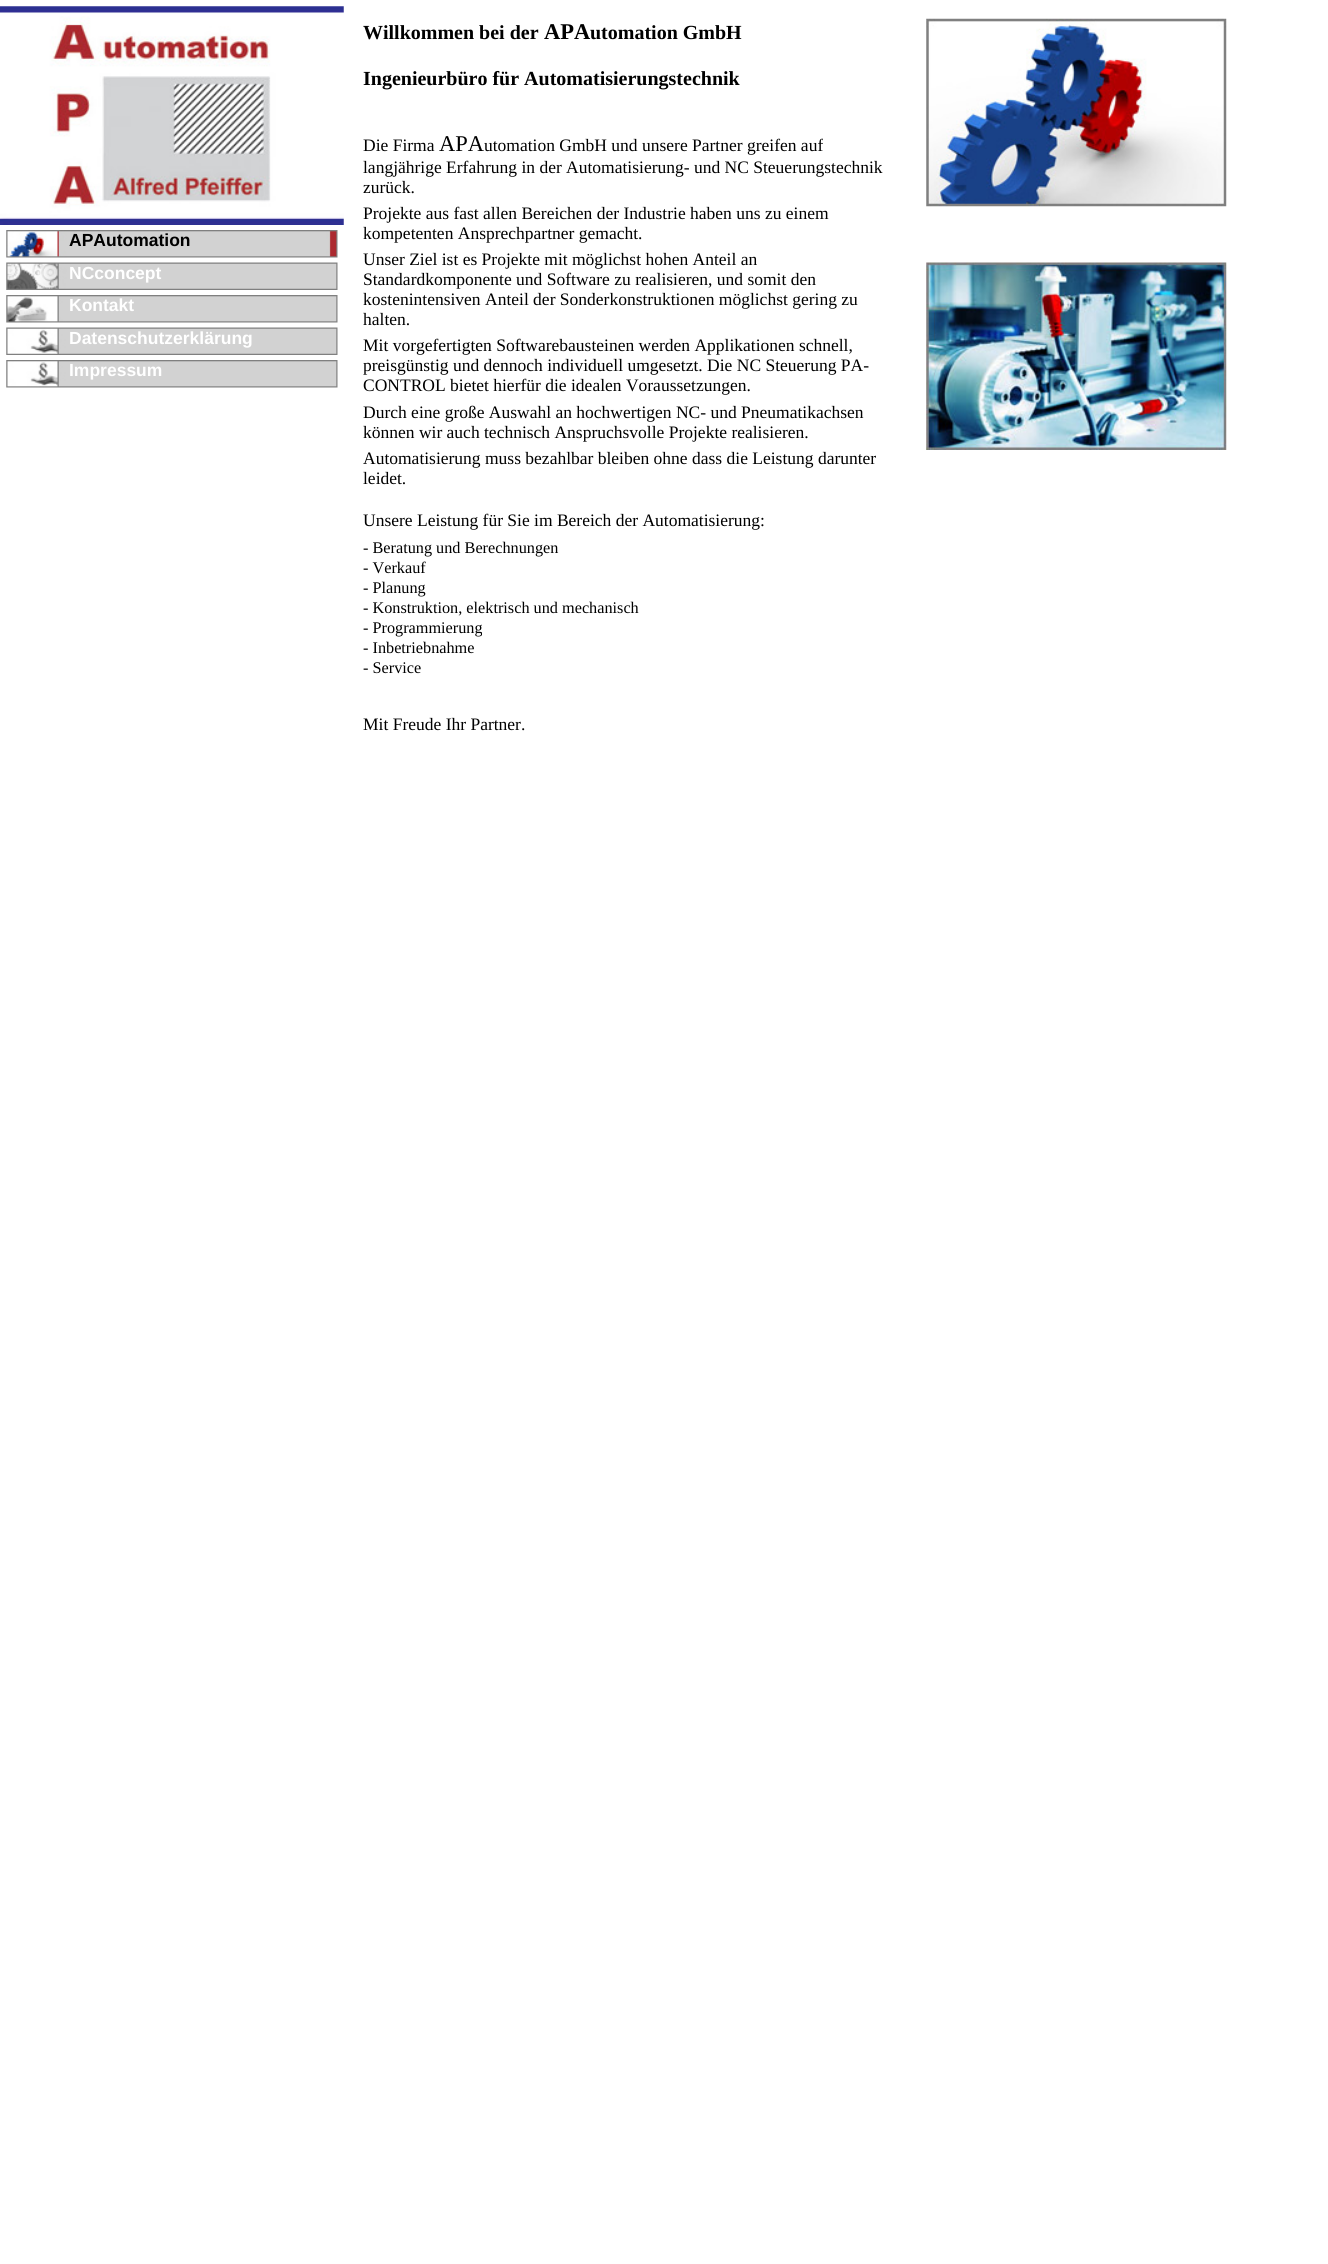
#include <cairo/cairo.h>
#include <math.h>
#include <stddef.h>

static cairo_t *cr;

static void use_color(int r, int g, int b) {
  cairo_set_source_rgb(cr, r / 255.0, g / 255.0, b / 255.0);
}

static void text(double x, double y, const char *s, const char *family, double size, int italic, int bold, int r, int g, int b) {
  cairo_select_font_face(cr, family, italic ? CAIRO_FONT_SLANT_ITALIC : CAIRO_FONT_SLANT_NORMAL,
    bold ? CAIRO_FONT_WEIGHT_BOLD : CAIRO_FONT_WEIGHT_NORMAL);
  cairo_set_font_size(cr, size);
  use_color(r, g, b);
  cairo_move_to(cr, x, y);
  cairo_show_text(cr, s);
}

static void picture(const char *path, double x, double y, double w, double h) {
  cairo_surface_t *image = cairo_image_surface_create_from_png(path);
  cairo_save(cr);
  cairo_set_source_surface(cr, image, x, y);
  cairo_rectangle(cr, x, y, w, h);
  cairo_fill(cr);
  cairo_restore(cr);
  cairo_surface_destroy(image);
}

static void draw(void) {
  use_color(255, 255, 255);
  cairo_paint(cr);
  picture("img_01.png", 0, 6, 344, 219);
  picture("img_02.png", 6, 230, 332, 28);
  picture("img_03.png", 6, 262, 332, 28);
  picture("img_04.png", 6, 295, 332, 28);
  picture("img_05.png", 6, 327, 332, 28);
  picture("img_06.png", 6, 360, 332, 28);
  picture("img_07.png", 926, 18, 301, 189);
  picture("img_08.png", 926, 262, 301, 188);
  text(69, 246, "APAutomation", "Liberation Sans", 17.5, 0, 1, 0, 0, 0);
  text(69, 279, "NCconcept", "Liberation Sans", 17.5, 0, 1, 255, 255, 255);
  text(69, 311, "Kontakt", "Liberation Sans", 17.5, 0, 1, 255, 255, 255);
  text(69, 344, "Datenschutzerklärung", "Liberation Sans", 17.5, 0, 1, 255, 255, 255);
  text(69, 376, "Impressum", "Liberation Sans", 17.5, 0, 1, 255, 255, 255);
  text(363, 39, "Willkommen bei der", "Liberation Serif", 20, 0, 1, 0, 0, 0);
  text(544, 39, "APA", "Liberation Serif", 22.5, 0, 1, 0, 0, 0);
  text(590, 39, "utomation GmbH", "Liberation Serif", 20, 0, 1, 0, 0, 0);
  text(363, 85, "Ingenieurbüro für Automatisierungstechnik", "Liberation Serif", 20, 0, 1, 0, 0, 0);
  text(363, 151, "Die Firma", "Liberation Serif", 17.5, 0, 0, 0, 0, 0);
  text(439, 151, "APA", "Liberation Serif", 22.5, 0, 0, 0, 0, 0);
  text(484, 151, "utomation GmbH und unsere Partner greifen auf", "Liberation Serif", 17.5, 0, 0, 0, 0, 0);
  text(363, 173, "langjährige Erfahrung in der Automatisierung- und NC Steuerungstechnik", "Liberation Serif", 17.5, 0, 0, 0, 0, 0);
  text(363, 193, "zurück.", "Liberation Serif", 17.5, 0, 0, 0, 0, 0);
  text(363, 219, "Projekte aus fast allen Bereichen der Industrie haben uns zu einem", "Liberation Serif", 17.5, 0, 0, 0, 0, 0);
  text(363, 239, "kompetenten Ansprechpartner gemacht.", "Liberation Serif", 17.5, 0, 0, 0, 0, 0);
  text(363, 265, "Unser Ziel ist es Projekte mit möglichst hohen Anteil an", "Liberation Serif", 17.5, 0, 0, 0, 0, 0);
  text(363, 285, "Standardkomponente und Software zu realisieren, und somit den", "Liberation Serif", 17.5, 0, 0, 0, 0, 0);
  text(363, 305, "kostenintensiven Anteil der Sonderkonstruktionen möglichst gering zu", "Liberation Serif", 17.5, 0, 0, 0, 0, 0);
  text(363, 325, "halten.", "Liberation Serif", 17.5, 0, 0, 0, 0, 0);
  text(363, 351, "Mit vorgefertigten Softwarebausteinen werden Applikationen schnell,", "Liberation Serif", 17.5, 0, 0, 0, 0, 0);
  text(363, 371, "preisgünstig und dennoch individuell umgesetzt. Die NC Steuerung PA-", "Liberation Serif", 17.5, 0, 0, 0, 0, 0);
  text(363, 391, "CONTROL bietet hierfür die idealen Voraussetzungen.", "Liberation Serif", 17.5, 0, 0, 0, 0, 0);
  text(363, 418, "Durch eine große Auswahl an hochwertigen NC- und Pneumatikachsen", "Liberation Serif", 17.5, 0, 0, 0, 0, 0);
  text(363, 438, "können wir auch technisch Anspruchsvolle Projekte realisieren.", "Liberation Serif", 17.5, 0, 0, 0, 0, 0);
  text(363, 464, "Automatisierung muss bezahlbar bleiben ohne dass die Leistung darunter", "Liberation Serif", 17.5, 0, 0, 0, 0, 0);
  text(363, 484, "leidet.", "Liberation Serif", 17.5, 0, 0, 0, 0, 0);
  text(363, 526, "Unsere Leistung für Sie im Bereich der Automatisierung:", "Liberation Serif", 17.5, 0, 0, 0, 0, 0);
  text(363, 553, "- Beratung und Berechnungen", "Liberation Serif", 16.25, 0, 0, 0, 0, 0);
  text(363, 573, "- Verkauf", "Liberation Serif", 16.25, 0, 0, 0, 0, 0);
  text(363, 593, "- Planung", "Liberation Serif", 16.25, 0, 0, 0, 0, 0);
  text(363, 613, "- Konstruktion, elektrisch und mechanisch", "Liberation Serif", 16.25, 0, 0, 0, 0, 0);
  text(363, 633, "- Programmierung", "Liberation Serif", 16.25, 0, 0, 0, 0, 0);
  text(363, 653, "- Inbetriebnahme", "Liberation Serif", 16.25, 0, 0, 0, 0, 0);
  text(363, 673, "- Service", "Liberation Serif", 16.25, 0, 0, 0, 0, 0);
  text(363, 730, "Mit Freude Ihr Partner.", "Liberation Serif", 17.5, 0, 0, 0, 0, 0);
}

int main(void) {
  cairo_surface_t *surface = cairo_image_surface_create(CAIRO_FORMAT_RGB24, 1328, 2264);
  cr = cairo_create(surface);
  cairo_font_options_t *options = cairo_font_options_create();
  cairo_font_options_set_hint_metrics(options, CAIRO_HINT_METRICS_OFF);
  cairo_font_options_set_hint_style(options, CAIRO_HINT_STYLE_NONE);
  cairo_set_font_options(cr, options);
  cairo_set_miter_limit(cr, 4);
  draw();
  cairo_surface_write_to_png(surface, "out.png");
  cairo_font_options_destroy(options);
  cairo_destroy(cr);
  cairo_surface_destroy(surface);
  return 0;
}
